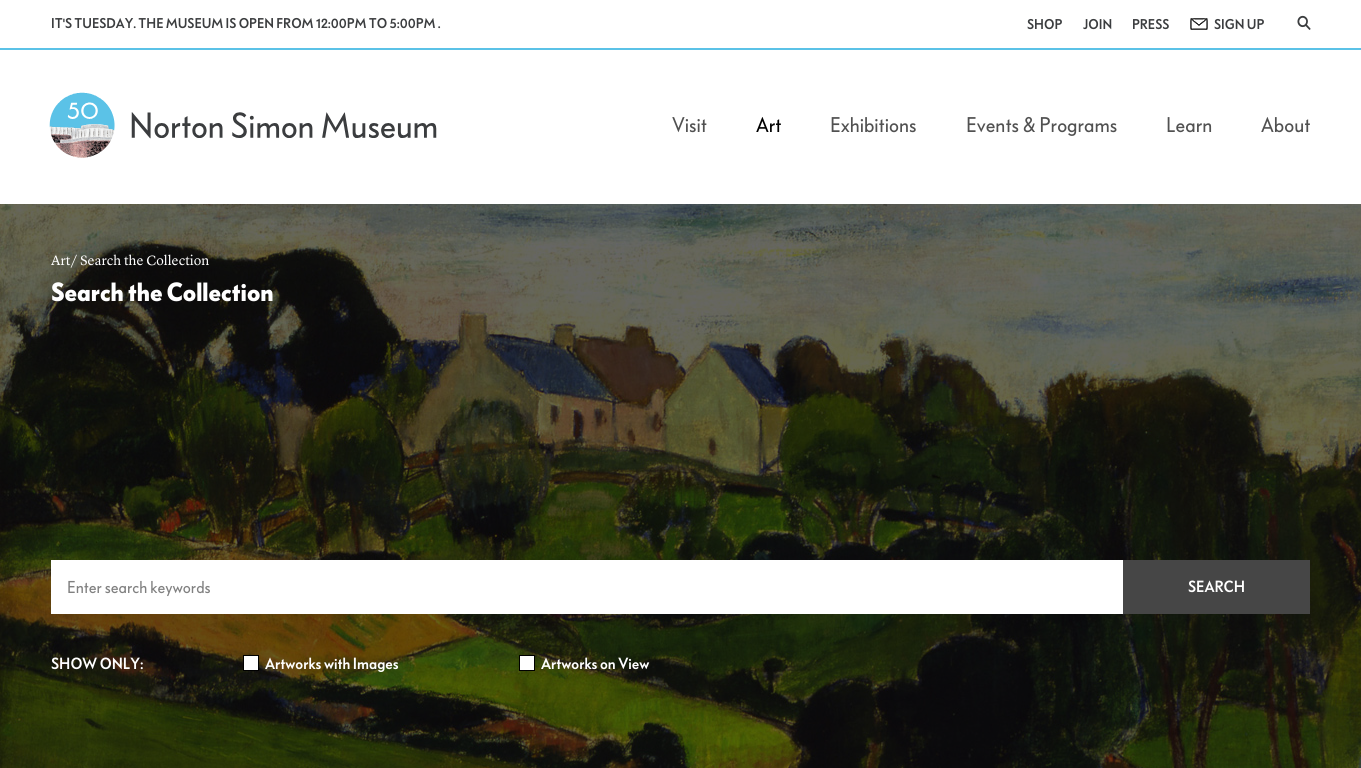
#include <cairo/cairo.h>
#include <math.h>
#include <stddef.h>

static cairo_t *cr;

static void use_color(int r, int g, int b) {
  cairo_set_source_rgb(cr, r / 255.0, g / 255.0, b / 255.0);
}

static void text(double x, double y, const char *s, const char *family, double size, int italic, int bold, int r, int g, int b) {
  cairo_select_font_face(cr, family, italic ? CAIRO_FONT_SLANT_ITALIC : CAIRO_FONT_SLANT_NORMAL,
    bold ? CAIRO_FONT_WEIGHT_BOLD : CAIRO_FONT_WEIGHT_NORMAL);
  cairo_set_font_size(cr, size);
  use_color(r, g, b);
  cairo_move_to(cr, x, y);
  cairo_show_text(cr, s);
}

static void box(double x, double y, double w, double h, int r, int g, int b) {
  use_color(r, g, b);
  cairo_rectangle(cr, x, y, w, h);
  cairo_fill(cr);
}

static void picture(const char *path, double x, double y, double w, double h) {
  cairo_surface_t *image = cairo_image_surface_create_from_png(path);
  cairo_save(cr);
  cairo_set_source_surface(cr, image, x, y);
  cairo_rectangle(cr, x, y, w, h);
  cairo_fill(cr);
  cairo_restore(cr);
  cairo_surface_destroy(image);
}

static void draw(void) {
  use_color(255, 255, 255);
  cairo_paint(cr);
  box(0, 48, 1361, 2, 91, 194, 231);
  picture("img_01.png", 1190, 18, 18, 12);
  picture("img_02.png", 1297, 15, 14, 15);
  picture("img_03.png", 49, 92, 388, 66);
  picture("img_04.png", 0, 204, 1361, 564);
  box(51, 560, 1072, 54, 255, 255, 255);
  box(1123, 560, 187, 54, 70, 70, 70);
  use_color(255, 255, 255);
  cairo_rectangle(cr, 243.5, 655.5, 15, 15);
  cairo_fill_preserve(cr);
  use_color(0, 0, 0);
  cairo_set_line_width(cr, 1);
  cairo_stroke(cr);
  use_color(255, 255, 255);
  cairo_rectangle(cr, 519.5, 655.5, 15, 15);
  cairo_fill_preserve(cr);
  use_color(0, 0, 0);
  cairo_stroke(cr);
  text(51, 28, "IT'S TUESDAY. THE MUSEUM IS OPEN FROM 12:00PM TO 5:00PM .", "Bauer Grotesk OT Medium", 14, 0, 0, 59, 61, 63);
  text(1027, 29, "SHOP", "Bauer Grotesk OT Medium", 14, 0, 0, 59, 61, 63);
  text(1083, 29, "JOIN", "Bauer Grotesk OT Medium", 14, 0, 0, 59, 61, 63);
  text(1132, 29, "PRESS", "Bauer Grotesk OT Medium", 14, 0, 0, 59, 61, 63);
  text(1214, 29, "SIGN UP", "Bauer Grotesk OT Medium", 14, 0, 0, 59, 61, 63);
  text(672, 132, "Visit", "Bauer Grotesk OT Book", 21, 0, 0, 81, 81, 81);
  text(756, 132, "Art", "Bauer Grotesk OT Book", 21, 0, 0, 0, 0, 0);
  text(830, 132, "Exhibitions", "Bauer Grotesk OT Book", 21, 0, 0, 81, 81, 81);
  text(966, 132, "Events & Programs", "Bauer Grotesk OT Book", 21, 0, 0, 81, 81, 81);
  text(1166, 132, "Learn", "Bauer Grotesk OT Book", 21, 0, 0, 81, 81, 81);
  text(1261, 132, "About", "Bauer Grotesk OT Book", 21, 0, 0, 81, 81, 81);
  text(51, 265, "Art/ Search the Collection", "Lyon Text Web", 14, 0, 0, 255, 255, 255);
  text(51, 301, "Search the Collection", "Bauer Grotesk OT", 26, 0, 1, 255, 255, 255);
  text(67, 593, "Enter search keywords", "Bauer Grotesk OT Book", 17, 0, 0, 128, 128, 128);
  text(1188, 592, "SEARCH", "Bauer Grotesk OT Medium", 16, 0, 0, 255, 255, 255);
  text(51, 669, "SHOW ONLY:", "Bauer Grotesk OT Medium", 16, 0, 0, 255, 255, 255);
  text(265, 669, "Artworks with Images", "Bauer Grotesk OT Medium", 16, 0, 0, 255, 255, 255);
  text(541, 669, "Artworks on View", "Bauer Grotesk OT Medium", 16, 0, 0, 255, 255, 255);
}

int main(void) {
  cairo_surface_t *surface = cairo_image_surface_create(CAIRO_FORMAT_RGB24, 1361, 768);
  cr = cairo_create(surface);
  cairo_font_options_t *options = cairo_font_options_create();
  cairo_font_options_set_hint_metrics(options, CAIRO_HINT_METRICS_OFF);
  cairo_font_options_set_hint_style(options, CAIRO_HINT_STYLE_NONE);
  cairo_set_font_options(cr, options);
  cairo_set_miter_limit(cr, 4);
  draw();
  cairo_surface_write_to_png(surface, "out.png");
  cairo_font_options_destroy(options);
  cairo_destroy(cr);
  cairo_surface_destroy(surface);
  return 0;
}
